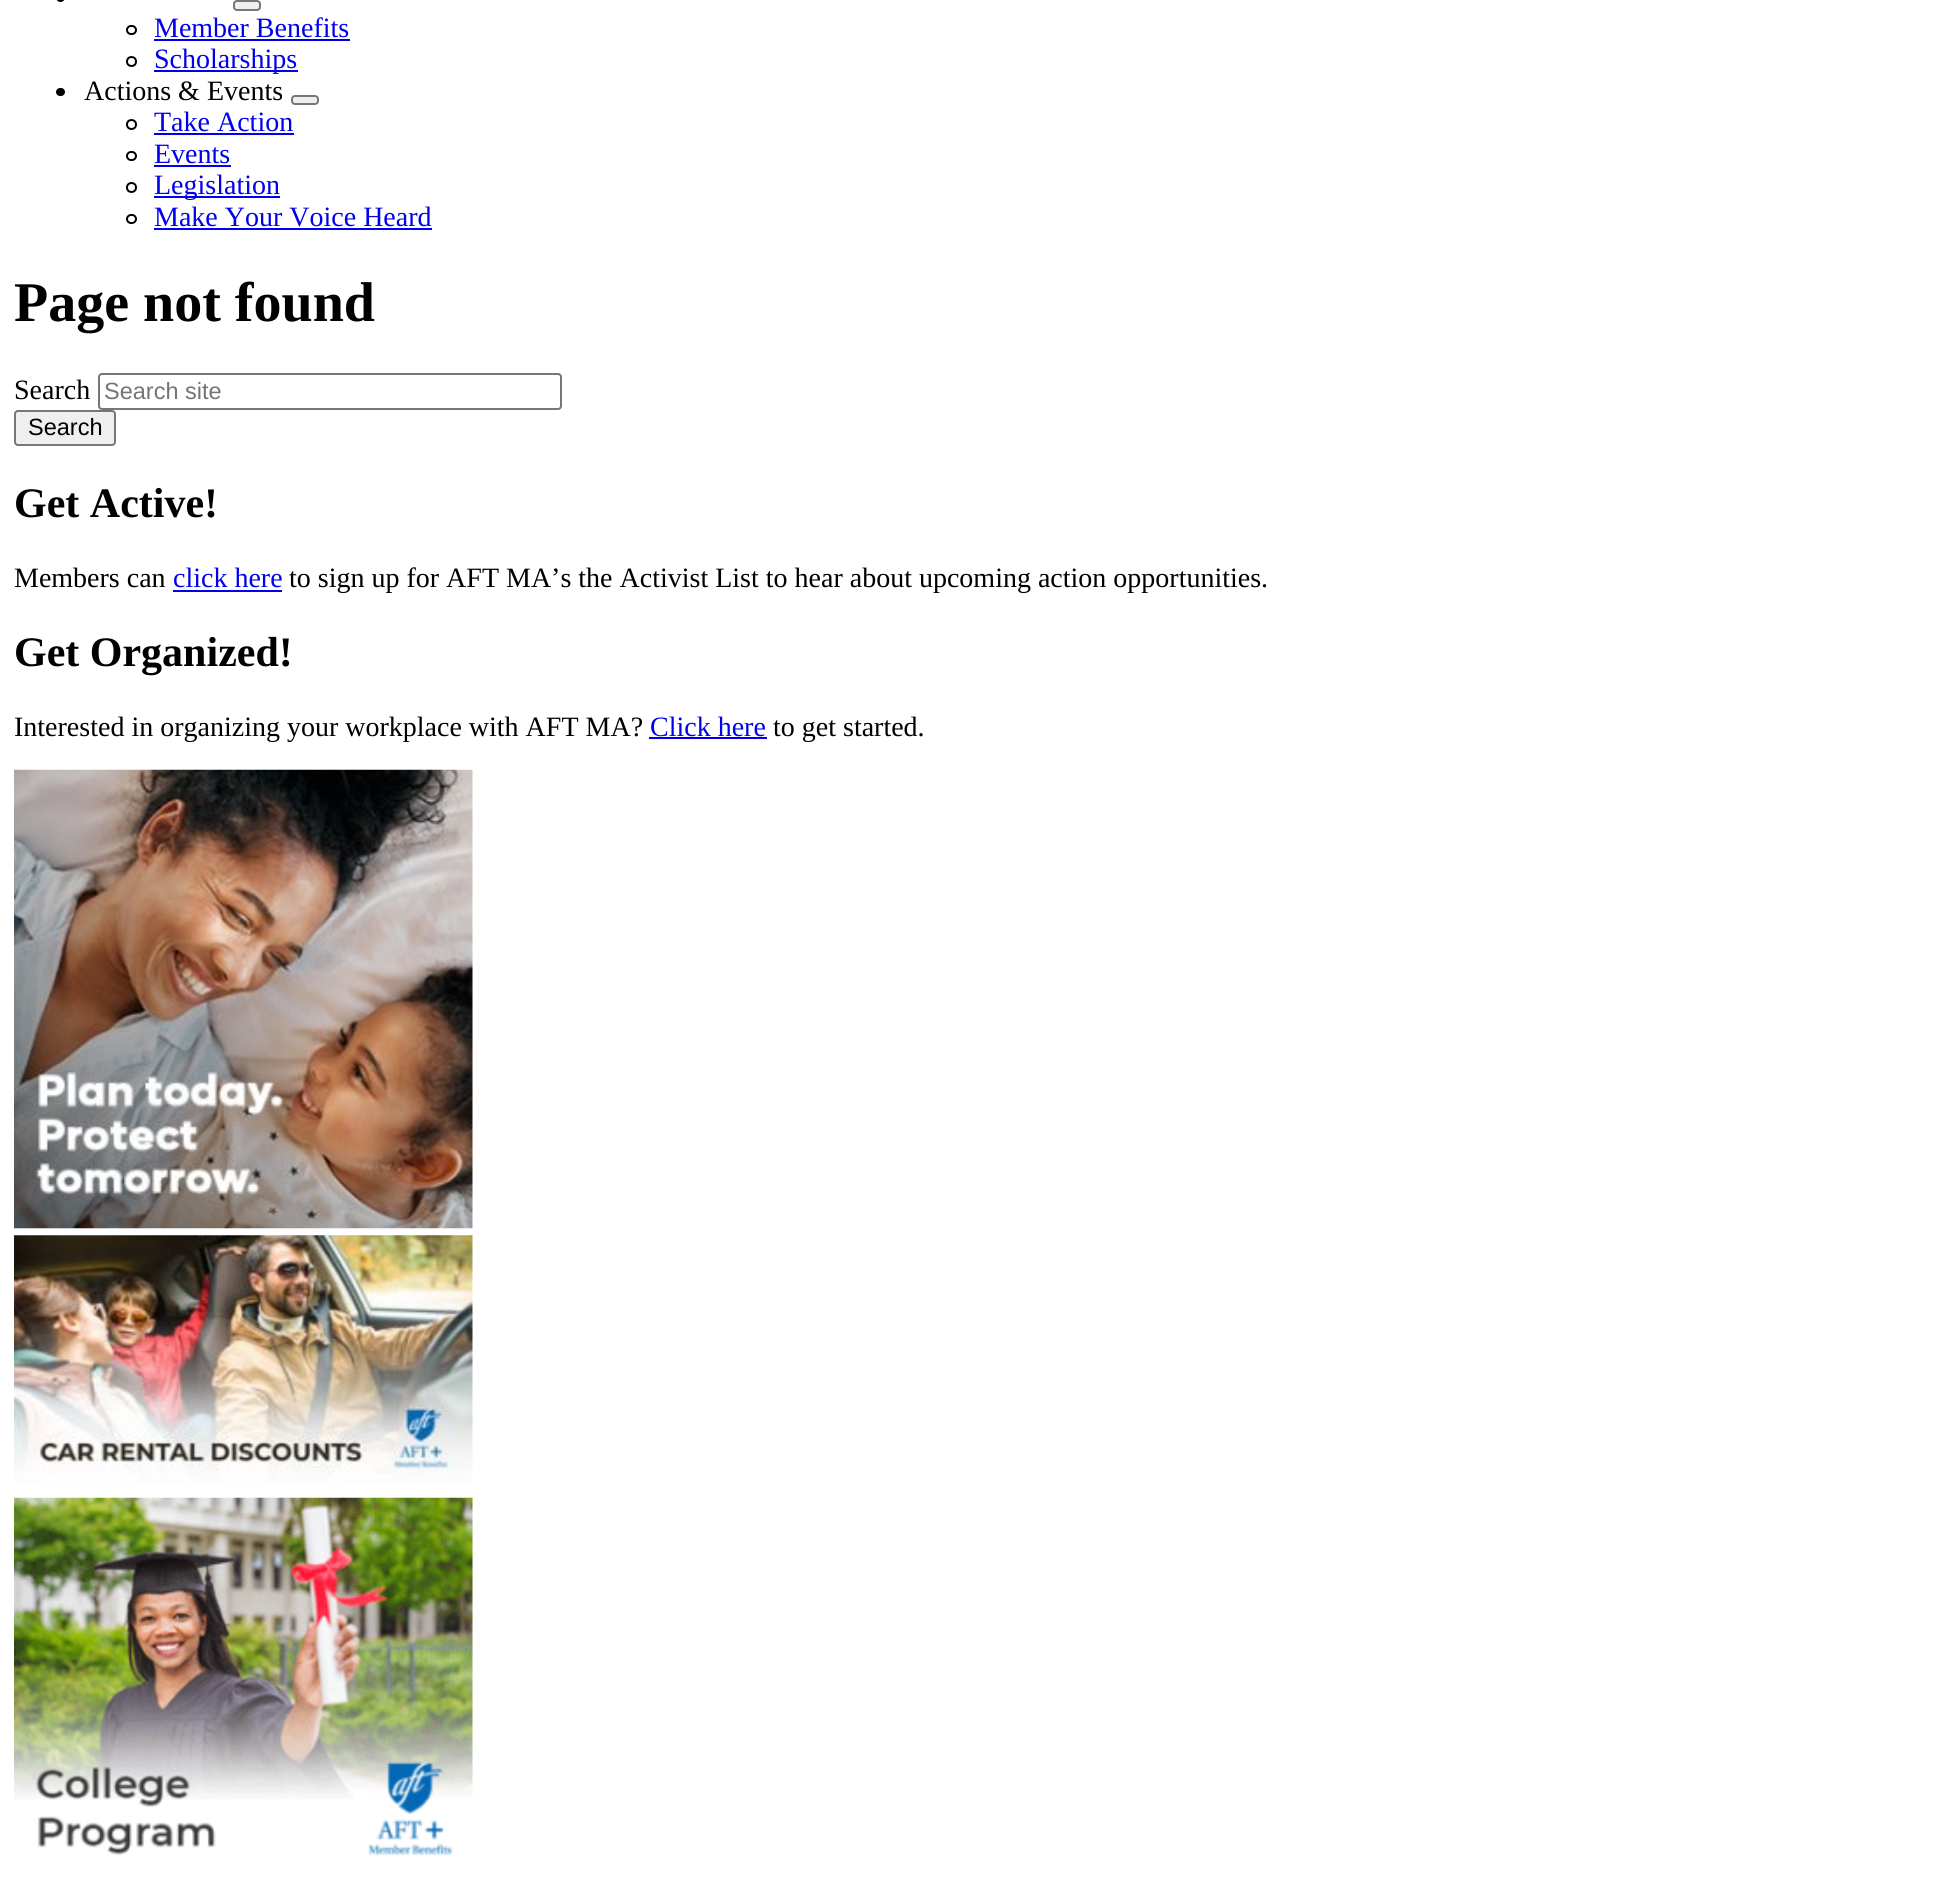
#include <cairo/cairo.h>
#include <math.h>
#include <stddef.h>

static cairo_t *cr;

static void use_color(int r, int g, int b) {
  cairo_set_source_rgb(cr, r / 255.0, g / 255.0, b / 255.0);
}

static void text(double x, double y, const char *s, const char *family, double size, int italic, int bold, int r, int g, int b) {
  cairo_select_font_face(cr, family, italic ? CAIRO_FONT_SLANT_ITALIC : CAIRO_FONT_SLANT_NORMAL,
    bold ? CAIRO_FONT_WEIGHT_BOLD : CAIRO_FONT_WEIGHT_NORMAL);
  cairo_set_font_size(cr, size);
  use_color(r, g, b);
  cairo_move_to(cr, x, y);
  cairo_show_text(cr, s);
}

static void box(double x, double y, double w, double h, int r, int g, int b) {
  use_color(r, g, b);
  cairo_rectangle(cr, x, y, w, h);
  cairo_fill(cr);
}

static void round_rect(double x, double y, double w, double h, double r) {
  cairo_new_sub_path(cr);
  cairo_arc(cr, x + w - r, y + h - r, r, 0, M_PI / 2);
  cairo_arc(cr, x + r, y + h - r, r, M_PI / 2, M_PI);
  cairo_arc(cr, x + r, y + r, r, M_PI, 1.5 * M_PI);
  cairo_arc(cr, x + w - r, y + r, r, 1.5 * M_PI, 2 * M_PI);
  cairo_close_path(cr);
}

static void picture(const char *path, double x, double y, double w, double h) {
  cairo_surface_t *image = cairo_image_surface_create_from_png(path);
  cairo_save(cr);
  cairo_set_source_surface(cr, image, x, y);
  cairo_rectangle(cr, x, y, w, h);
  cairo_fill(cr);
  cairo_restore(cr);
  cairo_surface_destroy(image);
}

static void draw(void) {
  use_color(255, 255, 255);
  cairo_paint(cr);
  use_color(0, 0, 0);
  round_rect(56, -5, 9, 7, 4.5);
  cairo_fill(cr);
  use_color(239, 239, 239);
  round_rect(234, 1, 26, 9, 3);
  cairo_fill_preserve(cr);
  use_color(118, 118, 118);
  cairo_stroke(cr);
  round_rect(127, 26, 9, 8, 4);
  use_color(0, 0, 0);
  cairo_stroke(cr);
  box(154, 39, 196, 2, 0, 0, 238);
  cairo_arc(cr, 131.5, 61.5, 4.5, 0, 2 * M_PI);
  use_color(0, 0, 0);
  cairo_stroke(cr);
  box(154, 70, 144, 2, 0, 0, 238);
  use_color(0, 0, 0);
  round_rect(56, 88, 9, 8, 4);
  cairo_fill(cr);
  use_color(239, 239, 239);
  round_rect(292, 96, 26, 8, 3);
  cairo_fill_preserve(cr);
  use_color(118, 118, 118);
  cairo_stroke(cr);
  cairo_arc(cr, 131.5, 124.5, 4.5, 0, 2 * M_PI);
  use_color(0, 0, 0);
  cairo_stroke(cr);
  box(154, 133, 140, 2, 0, 0, 238);
  round_rect(127, 152, 9, 8, 4);
  use_color(0, 0, 0);
  cairo_stroke(cr);
  box(154, 165, 77, 2, 0, 0, 238);
  cairo_arc(cr, 131.5, 187.5, 4.5, 0, 2 * M_PI);
  use_color(0, 0, 0);
  cairo_stroke(cr);
  box(154, 196, 126, 2, 0, 0, 238);
  round_rect(127, 215, 9, 8, 4);
  use_color(0, 0, 0);
  cairo_stroke(cr);
  box(154, 228, 278, 2, 0, 0, 238);
  round_rect(99, 374, 462, 35, 3);
  use_color(118, 118, 118);
  cairo_stroke(cr);
  use_color(239, 239, 239);
  round_rect(15, 411, 100, 34, 3);
  cairo_fill_preserve(cr);
  use_color(118, 118, 118);
  cairo_stroke(cr);
  box(173, 590, 109, 2, 0, 0, 238);
  box(649, 737, 118, 2, 0, 0, 238);
  picture("img_01.png", 14, 769, 459, 460);
  picture("img_02.png", 14, 1235, 459, 249);
  picture("img_03.png", 14, 1497, 459, 359);
  text(154, 37, "Member Benefits", "Liberation Serif", 28, 0, 0, 0, 0, 238);
  text(154, 68, "Scholarships", "Liberation Serif", 28, 0, 0, 0, 0, 238);
  text(84, 100, "Actions & Events", "Liberation Serif", 28, 0, 0, 0, 0, 0);
  text(154, 131, "Take Action", "Liberation Serif", 28, 0, 0, 0, 0, 238);
  text(154, 163, "Events", "Liberation Serif", 28, 0, 0, 0, 0, 238);
  text(154, 194, "Legislation", "Liberation Serif", 28, 0, 0, 0, 0, 238);
  text(154, 226, "Make Your Voice Heard", "Liberation Serif", 28, 0, 0, 0, 0, 238);
  text(14, 321, "Page not found", "Liberation Serif", 56, 0, 1, 0, 0, 0);
  text(14, 399, "Search", "Liberation Serif", 28, 0, 0, 0, 0, 0);
  text(104, 399, "Search site", "Liberation Sans", 23.5, 0, 0, 117, 117, 117);
  text(28, 435, "Search", "Liberation Sans", 23.5, 0, 0, 0, 0, 0);
  text(14, 517, "Get Active!", "Liberation Serif", 42, 0, 1, 0, 0, 0);
  text(14, 587, "Members can", "Liberation Serif", 28, 0, 0, 0, 0, 0);
  text(173, 587, "click here", "Liberation Serif", 28, 0, 0, 0, 0, 238);
  text(289, 587, "to sign up for AFT MA’s the Activist List to hear about upcoming action opportunities.", "Liberation Serif", 28, 0, 0, 0, 0, 0);
  text(14, 666, "Get Organized!", "Liberation Serif", 42, 0, 1, 0, 0, 0);
  text(14, 736, "Interested in organizing your workplace with AFT MA?", "Liberation Serif", 28, 0, 0, 0, 0, 0);
  text(650, 736, "Click here", "Liberation Serif", 28, 0, 0, 0, 0, 238);
  text(773, 736, "to get started.", "Liberation Serif", 28, 0, 0, 0, 0, 0);
}

int main(void) {
  cairo_surface_t *surface = cairo_image_surface_create(CAIRO_FORMAT_RGB24, 1936, 1881);
  cr = cairo_create(surface);
  cairo_font_options_t *options = cairo_font_options_create();
  cairo_font_options_set_hint_metrics(options, CAIRO_HINT_METRICS_OFF);
  cairo_font_options_set_hint_style(options, CAIRO_HINT_STYLE_NONE);
  cairo_set_font_options(cr, options);
  cairo_set_miter_limit(cr, 4);
  draw();
  cairo_surface_write_to_png(surface, "out.png");
  cairo_font_options_destroy(options);
  cairo_destroy(cr);
  cairo_surface_destroy(surface);
  return 0;
}
